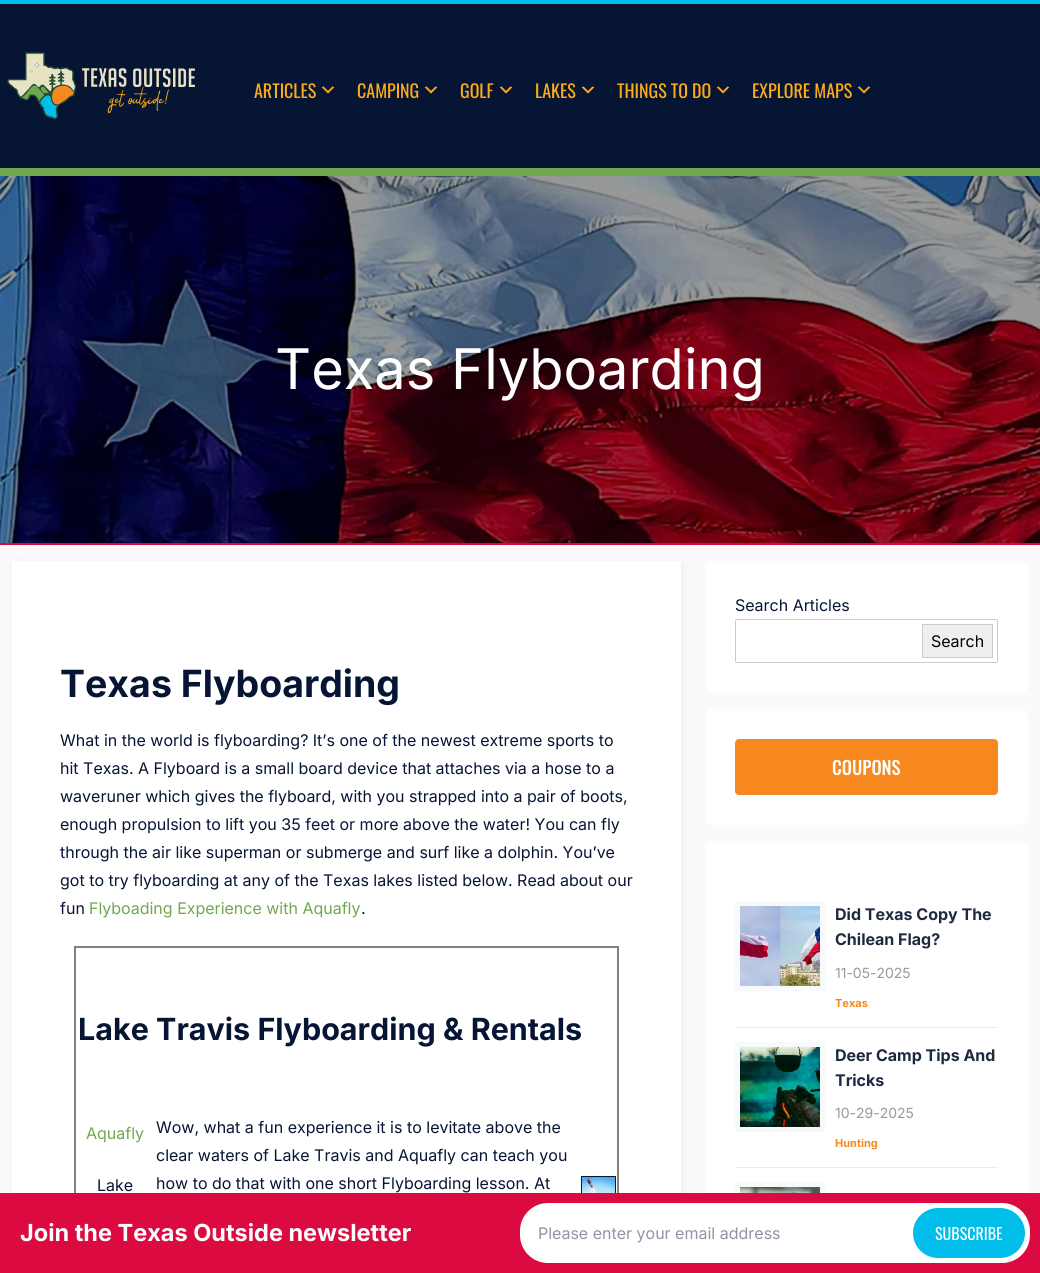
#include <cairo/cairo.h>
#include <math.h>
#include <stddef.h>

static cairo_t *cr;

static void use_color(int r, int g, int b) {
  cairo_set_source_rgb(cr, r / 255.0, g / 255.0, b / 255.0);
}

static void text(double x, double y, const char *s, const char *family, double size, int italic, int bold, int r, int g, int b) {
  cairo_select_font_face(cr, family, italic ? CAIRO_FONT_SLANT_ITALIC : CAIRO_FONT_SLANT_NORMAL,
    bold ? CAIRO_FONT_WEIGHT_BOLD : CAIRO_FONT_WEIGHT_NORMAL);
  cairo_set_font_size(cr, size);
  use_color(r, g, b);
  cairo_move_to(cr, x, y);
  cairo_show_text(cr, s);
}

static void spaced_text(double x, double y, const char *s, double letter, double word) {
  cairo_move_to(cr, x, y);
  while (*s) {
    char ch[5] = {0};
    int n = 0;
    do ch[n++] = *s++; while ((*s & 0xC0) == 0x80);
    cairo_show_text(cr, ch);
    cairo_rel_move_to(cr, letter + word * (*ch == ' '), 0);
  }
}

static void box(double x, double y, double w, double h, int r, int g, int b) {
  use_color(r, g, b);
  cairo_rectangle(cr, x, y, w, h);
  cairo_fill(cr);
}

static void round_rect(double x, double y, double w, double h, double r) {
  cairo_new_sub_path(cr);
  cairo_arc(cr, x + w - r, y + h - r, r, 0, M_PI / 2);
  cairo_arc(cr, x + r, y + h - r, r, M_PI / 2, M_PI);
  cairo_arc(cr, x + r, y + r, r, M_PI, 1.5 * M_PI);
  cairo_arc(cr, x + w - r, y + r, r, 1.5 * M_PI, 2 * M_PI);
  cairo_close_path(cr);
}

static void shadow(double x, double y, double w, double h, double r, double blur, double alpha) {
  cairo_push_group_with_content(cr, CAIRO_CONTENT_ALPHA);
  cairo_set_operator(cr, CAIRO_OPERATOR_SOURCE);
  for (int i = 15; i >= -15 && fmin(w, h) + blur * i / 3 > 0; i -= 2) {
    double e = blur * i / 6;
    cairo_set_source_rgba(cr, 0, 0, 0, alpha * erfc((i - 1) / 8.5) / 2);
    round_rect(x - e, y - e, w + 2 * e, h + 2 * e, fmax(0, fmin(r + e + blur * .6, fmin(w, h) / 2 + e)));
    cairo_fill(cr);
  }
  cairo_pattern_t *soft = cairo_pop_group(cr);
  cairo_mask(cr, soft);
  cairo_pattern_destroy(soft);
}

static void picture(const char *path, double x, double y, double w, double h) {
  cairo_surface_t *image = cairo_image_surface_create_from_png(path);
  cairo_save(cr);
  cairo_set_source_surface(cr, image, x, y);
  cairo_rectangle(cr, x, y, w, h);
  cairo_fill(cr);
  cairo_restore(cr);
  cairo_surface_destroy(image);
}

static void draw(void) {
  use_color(250, 250, 250);
  cairo_paint(cr);
  box(0, 4, 1040, 164, 7, 21, 53);
  box(0, 0, 1040, 4, 0, 189, 233);
  box(0, 168, 1040, 8, 111, 168, 79);
  picture("img_01.png", 7, 52, 188, 68);
  picture("img_02.png", 321, 86, 14, 8);
  picture("img_02.png", 424, 86, 14, 8);
  picture("img_02.png", 499, 86, 14, 8);
  picture("img_02.png", 581, 86, 14, 8);
  picture("img_02.png", 716, 86, 14, 8);
  picture("img_02.png", 857, 86, 14, 8);
  box(0, 176, 1040, 367, 0, 0, 0);
  box(0, 543, 1040, 2, 219, 7, 64);
  picture("img_03.png", 0, 176, 1040, 367);
  use_color(119, 119, 119);
  shadow(14, 564, 669, 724, 0, 5, 0.1);
  box(12, 561, 669, 632, 255, 255, 255);
  box(74, 946, 545, 2, 128, 128, 128);
  box(617, 946, 2, 247, 128, 128, 128);
  box(74, 946, 2, 247, 128, 128, 128);
  cairo_rectangle(cr, 581.5, 1176.5, 34, 47);
  use_color(7, 21, 53);
  cairo_set_line_width(cr, 1);
  cairo_stroke(cr);
  picture("img_04.png", 582, 1177, 33, 16);
  use_color(255, 255, 255);
  round_rect(705, 561, 323, 132, 8);
  cairo_fill(cr);
  round_rect(735.5, 619.5, 262, 43, 1.5);
  use_color(204, 204, 204);
  cairo_stroke(cr);
  use_color(239, 239, 239);
  cairo_rectangle(cr, 922.5, 624.5, 70, 33);
  cairo_fill_preserve(cr);
  use_color(204, 204, 204);
  cairo_stroke(cr);
  use_color(255, 255, 255);
  round_rect(705, 709, 323, 116, 8);
  cairo_fill(cr);
  use_color(246, 136, 31);
  round_rect(735, 739, 263, 56, 4);
  cairo_fill(cr);
  use_color(255, 255, 255);
  round_rect(705, 841, 323, 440, 8);
  cairo_fill(cr);
  box(735, 1027, 263, 1, 235, 235, 235);
  box(735, 901, 90, 90, 248, 249, 250);
  picture("img_05.png", 740, 906, 80, 80);
  box(735, 1167, 263, 1, 235, 235, 235);
  box(735, 1042, 90, 90, 248, 249, 250);
  picture("img_06.png", 740, 1047, 80, 80);
  box(735, 1182, 90, 11, 248, 249, 250);
  picture("img_07.png", 740, 1187, 80, 6);
  box(0, 1193, 1040, 80, 219, 10, 64);
  use_color(255, 255, 255);
  round_rect(520, 1203, 510, 60, 28);
  cairo_fill(cr);
  use_color(0, 189, 233);
  round_rect(913, 1208, 112, 50, 25);
  cairo_fill(cr);
  text(254, 98, "ARTICLES", "Oswald", 18, 0, 0, 251, 172, 24);
  text(357, 98, "CAMPING", "Oswald", 18, 0, 0, 251, 172, 24);
  text(460, 98, "GOLF", "Oswald", 18, 0, 0, 251, 172, 24);
  text(535, 98, "LAKES", "Oswald", 18, 0, 0, 251, 172, 24);
  text(617, 98, "THINGS TO DO", "Oswald", 18, 0, 0, 251, 172, 24);
  text(752, 98, "EXPLORE MAPS", "Oswald", 18, 0, 0, 251, 172, 24);
  text(275, 389, "Texas Flyboarding", "Inter", 56, 0, 0, 255, 255, 255);
  text(60, 697, "Texas Flyboarding", "Inter", 37.5, 0, 1, 7, 21, 53);
  text(60, 746, "What in the world is flyboarding? It’s one of the newest extreme sports to", "Inter", 16, 0, 0, 7, 21, 53);
  text(60, 774, "hit Texas. A Flyboard is a small board device that attaches via a hose to a", "Inter", 16, 0, 0, 7, 21, 53);
  text(60, 802, "waveruner which gives the flyboard, with you strapped into a pair of boots,", "Inter", 16, 0, 0, 7, 21, 53);
  text(60, 830, "enough propulsion to lift you 35 feet or more above the water! You can fly", "Inter", 16, 0, 0, 7, 21, 53);
  text(60, 858, "through the air like superman or submerge and surf like a dolphin. You’ve", "Inter", 16, 0, 0, 7, 21, 53);
  text(60, 886, "got to try flyboarding at any of the Texas lakes listed below. Read about our", "Inter", 16, 0, 0, 7, 21, 53);
  text(60, 914, "fun", "Inter", 16, 0, 0, 7, 21, 53);
  text(89, 914, "Flyboading Experience with Aquafly", "Inter", 16, 0, 0, 111, 168, 79);
  text(361, 914, ".", "Inter", 16, 0, 0, 7, 21, 53);
  text(78, 1040, "Lake Travis Flyboarding & Rentals", "Inter", 30.5, 0, 1, 7, 21, 53);
  text(86, 1139, "Aquafly", "Inter", 16, 0, 0, 111, 168, 79);
  text(97, 1191, "Lake", "Inter", 16, 0, 0, 7, 21, 53);
  text(156, 1133, "Wow, what a fun experience it is to levitate above the", "Inter", 16, 0, 0, 7, 21, 53);
  text(156, 1161, "clear waters of Lake Travis and Aquafly can teach you", "Inter", 16, 0, 0, 7, 21, 53);
  text(156, 1189, "how to do that with one short Flyboarding lesson. At", "Inter", 16, 0, 0, 7, 21, 53);
  text(735, 611, "Search Articles", "Inter", 16, 0, 0, 7, 21, 53);
  text(931, 647, "Search", "Inter", 16, 0, 0, 0, 0, 0);
  cairo_select_font_face(cr, "Oswald", CAIRO_FONT_SLANT_NORMAL, CAIRO_FONT_WEIGHT_BOLD);
  cairo_set_font_size(cr, 18);
  use_color(255, 255, 255);
  spaced_text(832, 775, "COUPONS", 0.5, 0);
  text(835, 920, "Did Texas Copy The", "Inter", 16, 0, 1, 29, 41, 63);
  text(835, 945, "Chilean Flag?", "Inter", 16, 0, 1, 29, 41, 63);
  text(835, 978, "11-05-2025", "Inter", 14, 0, 0, 153, 153, 153);
  text(835, 1007, "Texas", "Inter", 11, 0, 1, 246, 136, 31);
  text(835, 1061, "Deer Camp Tips And", "Inter", 16, 0, 1, 29, 41, 63);
  text(835, 1086, "Tricks", "Inter", 16, 0, 1, 29, 41, 63);
  text(835, 1118, "10-29-2025", "Inter", 14, 0, 0, 153, 153, 153);
  text(835, 1147, "Hunting", "Inter", 11, 0, 1, 246, 136, 31);
  text(20, 1241, "Join the Texas Outside newsletter", "Inter", 23.5, 0, 1, 255, 255, 255);
  text(538, 1239, "Please enter your email address", "Inter", 16, 0, 0, 150, 145, 164);
  text(935, 1240, "SUBSCRIBE", "Oswald", 16, 0, 0, 255, 255, 255);
}

int main(void) {
  cairo_surface_t *surface = cairo_image_surface_create(CAIRO_FORMAT_RGB24, 1040, 1273);
  cr = cairo_create(surface);
  cairo_font_options_t *options = cairo_font_options_create();
  cairo_font_options_set_hint_metrics(options, CAIRO_HINT_METRICS_OFF);
  cairo_font_options_set_hint_style(options, CAIRO_HINT_STYLE_NONE);
  cairo_set_font_options(cr, options);
  cairo_set_miter_limit(cr, 4);
  draw();
  cairo_surface_write_to_png(surface, "out.png");
  cairo_font_options_destroy(options);
  cairo_destroy(cr);
  cairo_surface_destroy(surface);
  return 0;
}
